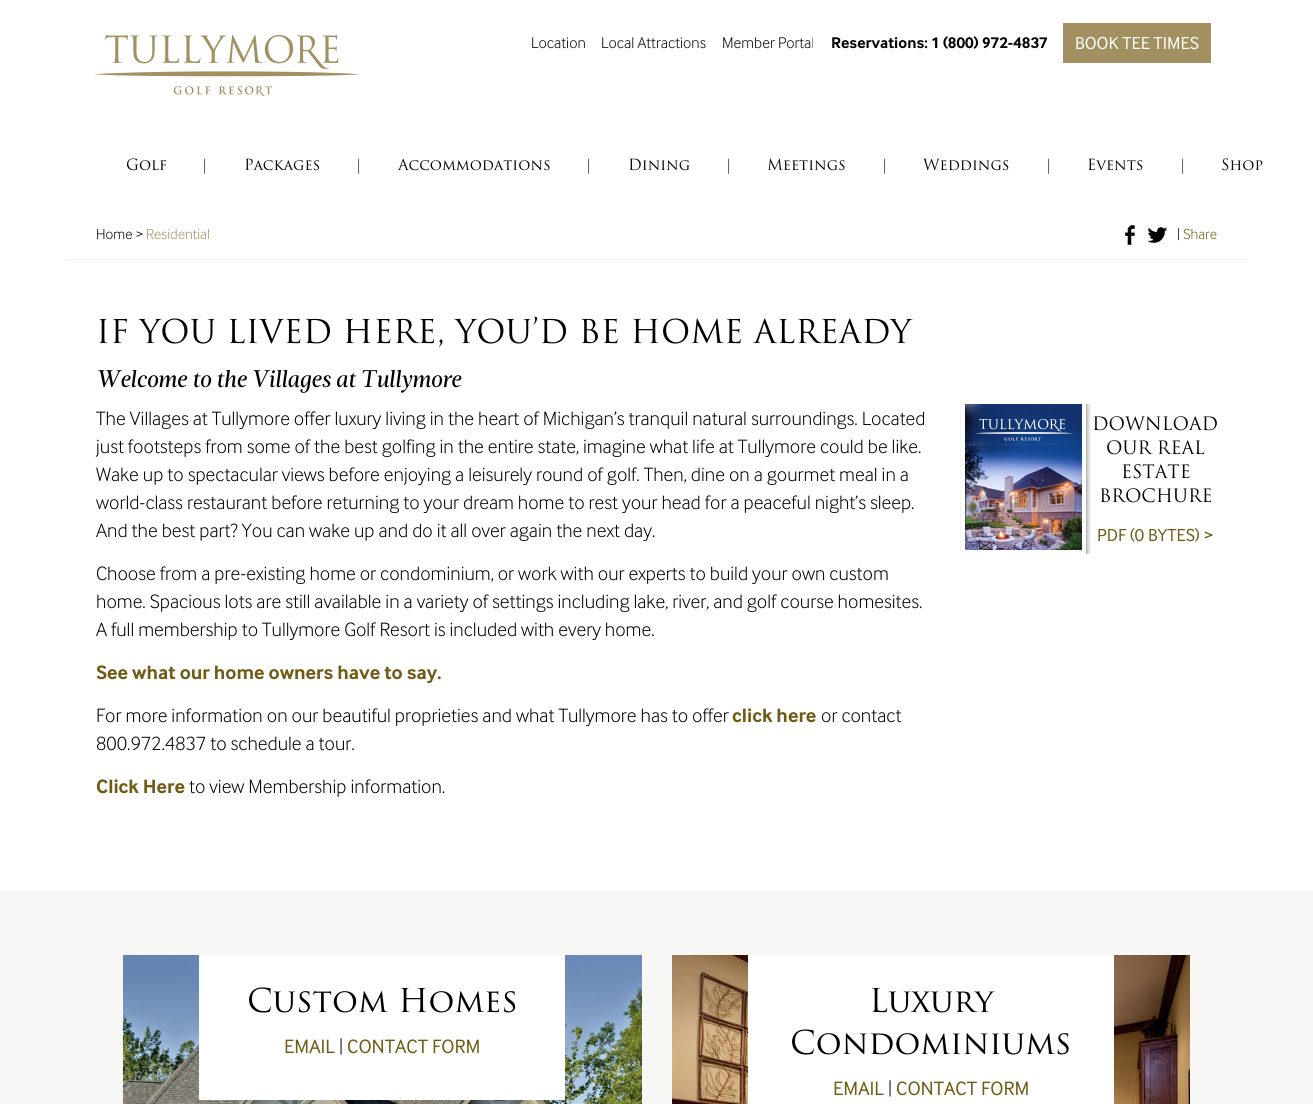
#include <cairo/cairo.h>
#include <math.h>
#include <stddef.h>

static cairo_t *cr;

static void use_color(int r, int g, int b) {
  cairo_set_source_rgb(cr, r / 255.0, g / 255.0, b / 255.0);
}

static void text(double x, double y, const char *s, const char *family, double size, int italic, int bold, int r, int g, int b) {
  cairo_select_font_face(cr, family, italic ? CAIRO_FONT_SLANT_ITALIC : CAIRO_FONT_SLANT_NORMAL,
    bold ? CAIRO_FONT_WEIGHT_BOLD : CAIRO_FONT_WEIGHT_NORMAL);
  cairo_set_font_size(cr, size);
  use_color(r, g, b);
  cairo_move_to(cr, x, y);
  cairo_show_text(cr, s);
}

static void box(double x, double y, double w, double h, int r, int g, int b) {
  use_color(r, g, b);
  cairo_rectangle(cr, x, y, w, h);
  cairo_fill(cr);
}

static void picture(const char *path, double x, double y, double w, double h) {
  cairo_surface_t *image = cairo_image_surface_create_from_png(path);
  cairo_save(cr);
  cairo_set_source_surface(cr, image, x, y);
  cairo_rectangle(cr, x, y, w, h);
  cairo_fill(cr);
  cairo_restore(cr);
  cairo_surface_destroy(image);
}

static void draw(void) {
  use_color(255, 255, 255);
  cairo_paint(cr);
  picture("img_01.png", 94, 35, 266, 61);
  box(1063, 23, 148, 40, 162, 144, 97);
  box(66, 259, 1181, 1, 241, 241, 241);
  picture("img_02.png", 1125, 225, 10, 20);
  picture("img_03.png", 1147, 227, 20, 16);
  picture("img_04.png", 960, 404, 131, 150);
  box(0, 890, 1313, 214, 247, 247, 246);
  picture("img_05.png", 123, 955, 519, 149);
  box(199, 955, 366, 145, 255, 255, 255);
  picture("img_06.png", 672, 955, 518, 149);
  box(748, 955, 366, 149, 255, 255, 255);
  text(531, 48, "Location", "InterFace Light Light", 16, 0, 0, 0, 0, 0);
  text(601, 48, "Local Attractions", "InterFace Light Light", 16, 0, 0, 0, 0, 0);
  text(722, 48, "Member Portal", "InterFace Light Light", 16, 0, 0, 0, 0, 0);
  text(831, 48, "Reservations: 1 (800) 972-4837", "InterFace", 16, 0, 1, 0, 0, 0);
  text(1075, 49, "BOOK TEE TIMES", "InterFace", 18, 0, 0, 255, 255, 255);
  text(126, 170, "Golf", "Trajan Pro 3", 15, 0, 0, 0, 0, 0);
  text(201, 170, "|", "Trajan Pro 3", 15, 0, 0, 0, 0, 0);
  text(244, 170, "Packages", "Trajan Pro 3", 15, 0, 0, 0, 0, 0);
  text(355, 170, "|", "Trajan Pro 3", 15, 0, 0, 0, 0, 0);
  text(398, 170, "Accommodations", "Trajan Pro 3", 15, 0, 0, 0, 0, 0);
  text(585, 170, "|", "Trajan Pro 3", 15, 0, 0, 0, 0, 0);
  text(628, 170, "Dining", "Trajan Pro 3", 15, 0, 0, 0, 0, 0);
  text(725, 170, "|", "Trajan Pro 3", 15, 0, 0, 0, 0, 0);
  text(767, 170, "Meetings", "Trajan Pro 3", 15, 0, 0, 0, 0, 0);
  text(881, 170, "|", "Trajan Pro 3", 15, 0, 0, 0, 0, 0);
  text(923, 170, "Weddings", "Trajan Pro 3", 15, 0, 0, 0, 0, 0);
  text(1045, 170, "|", "Trajan Pro 3", 15, 0, 0, 0, 0, 0);
  text(1087, 170, "Events", "Trajan Pro 3", 15, 0, 0, 0, 0, 0);
  text(1179, 170, "|", "Trajan Pro 3", 15, 0, 0, 0, 0, 0);
  text(1221, 170, "Shop", "Trajan Pro 3", 15, 0, 0, 0, 0, 0);
  text(96, 239, "Home >", "InterFace Light Light", 15, 0, 0, 0, 0, 0);
  text(146, 239, "Residential", "InterFace Light Light", 15, 0, 0, 162, 144, 97);
  text(1177, 239, "|", "InterFace Light Light", 15, 0, 0, 0, 0, 0);
  text(1183, 239, "Share", "InterFace Light Light", 15, 0, 0, 111, 91, 19);
  text(96, 343, "IF YOU LIVED HERE, YOU’D BE HOME ALREADY", "Trajan Pro 3", 32, 0, 0, 0, 0, 0);
  text(96, 387, "Welcome to the Villages at Tullymore", "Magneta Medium", 24, 1, 0, 0, 0, 0);
  text(96, 425, "The Villages at Tullymore offer luxury living in the heart of Michigan’s tranquil natural surroundings. Located", "InterFace Light Light", 20, 0, 0, 0, 0, 0);
  text(96, 453, "just footsteps from some of the best golfing in the entire state, imagine what life at Tullymore could be like.", "InterFace Light Light", 20, 0, 0, 0, 0, 0);
  text(96, 481, "Wake up to spectacular views before enjoying a leisurely round of golf. Then, dine on a gourmet meal in a", "InterFace Light Light", 20, 0, 0, 0, 0, 0);
  text(96, 509, "world-class restaurant before returning to your dream home to rest your head for a peaceful night’s sleep.", "InterFace Light Light", 20, 0, 0, 0, 0, 0);
  text(96, 537, "And the best part? You can wake up and do it all over again the next day.", "InterFace Light Light", 20, 0, 0, 0, 0, 0);
  text(96, 580, "Choose from a pre-existing home or condominium, or work with our experts to build your own custom", "InterFace Light Light", 20, 0, 0, 0, 0, 0);
  text(96, 608, "home. Spacious lots are still available in a variety of settings including lake, river, and golf course homesites.", "InterFace Light Light", 20, 0, 0, 0, 0, 0);
  text(96, 636, "A full membership to Tullymore Golf Resort is included with every home.", "InterFace Light Light", 20, 0, 0, 0, 0, 0);
  text(96, 679, "See what our home owners have to say.", "InterFace", 20, 0, 1, 111, 91, 19);
  text(96, 722, "For more information on our beautiful proprieties and what Tullymore has to offer", "InterFace Light Light", 20, 0, 0, 0, 0, 0);
  text(732, 722, "click here", "InterFace", 20, 0, 1, 111, 91, 19);
  text(821, 722, "or contact", "InterFace Light Light", 20, 0, 0, 0, 0, 0);
  text(96, 750, "800.972.4837 to schedule a tour.", "InterFace Light Light", 20, 0, 0, 0, 0, 0);
  text(96, 793, "Click Here", "InterFace", 20, 0, 1, 111, 91, 19);
  text(189, 793, "to view Membership information.", "InterFace Light Light", 20, 0, 0, 0, 0, 0);
  text(1092, 430, "DOWNLOAD", "Trajan Pro 3", 18, 0, 0, 0, 0, 0);
  text(1106, 454, "OUR REAL", "Trajan Pro 3", 18, 0, 0, 0, 0, 0);
  text(1121, 478, "ESTATE", "Trajan Pro 3", 18, 0, 0, 0, 0, 0);
  text(1099, 502, "BROCHURE", "Trajan Pro 3", 18, 0, 0, 0, 0, 0);
  text(1097, 541, "PDF (0 BYTES) >", "InterFace", 18, 0, 0, 111, 91, 19);
  text(247, 1012, "Custom Homes", "Trajan Pro 3", 32, 0, 0, 0, 0, 0);
  text(284, 1053, "EMAIL", "InterFace", 20, 0, 0, 111, 91, 19);
  text(339, 1053, "|", "InterFace Light Light", 20, 0, 0, 0, 0, 0);
  text(347, 1053, "CONTACT FORM", "InterFace", 20, 0, 0, 111, 91, 19);
  text(869, 1012, "Luxury", "Trajan Pro 3", 32, 0, 0, 0, 0, 0);
  text(790, 1054, "Condominiums", "Trajan Pro 3", 32, 0, 0, 0, 0, 0);
  text(833, 1095, "EMAIL", "InterFace", 20, 0, 0, 111, 91, 19);
  text(888, 1095, "|", "InterFace Light Light", 20, 0, 0, 0, 0, 0);
  text(896, 1095, "CONTACT FORM", "InterFace", 20, 0, 0, 111, 91, 19);
}

int main(void) {
  cairo_surface_t *surface = cairo_image_surface_create(CAIRO_FORMAT_RGB24, 1313, 1104);
  cr = cairo_create(surface);
  cairo_font_options_t *options = cairo_font_options_create();
  cairo_font_options_set_hint_metrics(options, CAIRO_HINT_METRICS_OFF);
  cairo_font_options_set_hint_style(options, CAIRO_HINT_STYLE_NONE);
  cairo_set_font_options(cr, options);
  cairo_set_miter_limit(cr, 4);
  draw();
  cairo_surface_write_to_png(surface, "out.png");
  cairo_font_options_destroy(options);
  cairo_destroy(cr);
  cairo_surface_destroy(surface);
  return 0;
}
